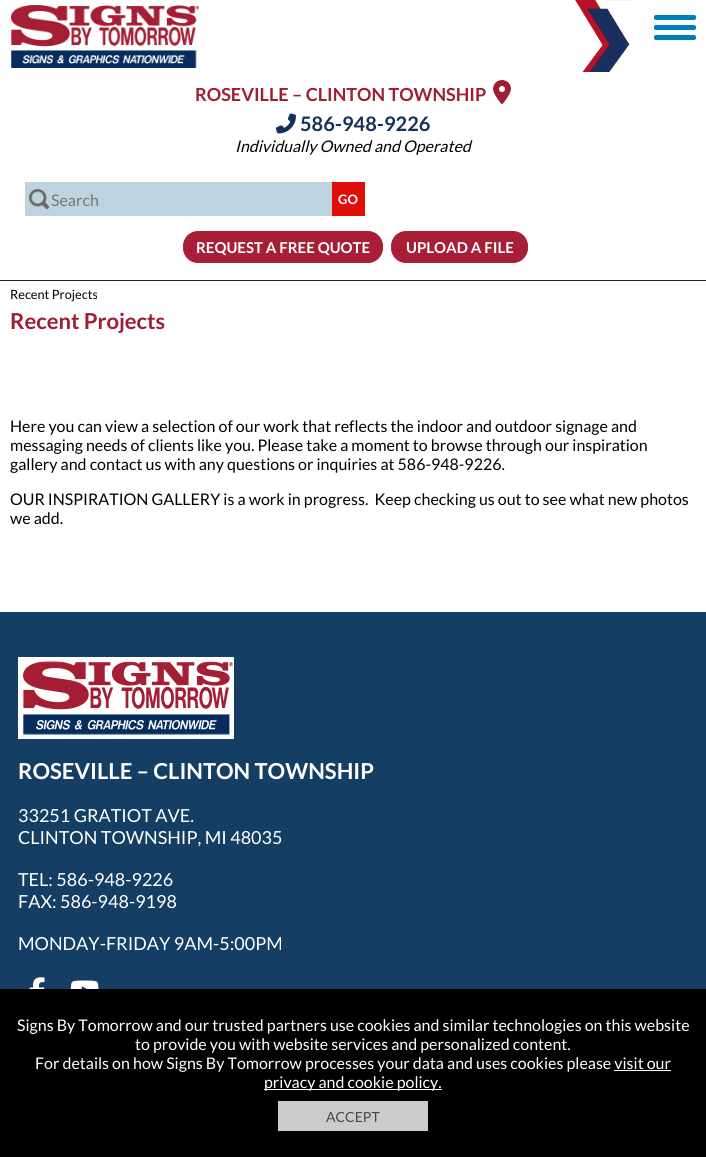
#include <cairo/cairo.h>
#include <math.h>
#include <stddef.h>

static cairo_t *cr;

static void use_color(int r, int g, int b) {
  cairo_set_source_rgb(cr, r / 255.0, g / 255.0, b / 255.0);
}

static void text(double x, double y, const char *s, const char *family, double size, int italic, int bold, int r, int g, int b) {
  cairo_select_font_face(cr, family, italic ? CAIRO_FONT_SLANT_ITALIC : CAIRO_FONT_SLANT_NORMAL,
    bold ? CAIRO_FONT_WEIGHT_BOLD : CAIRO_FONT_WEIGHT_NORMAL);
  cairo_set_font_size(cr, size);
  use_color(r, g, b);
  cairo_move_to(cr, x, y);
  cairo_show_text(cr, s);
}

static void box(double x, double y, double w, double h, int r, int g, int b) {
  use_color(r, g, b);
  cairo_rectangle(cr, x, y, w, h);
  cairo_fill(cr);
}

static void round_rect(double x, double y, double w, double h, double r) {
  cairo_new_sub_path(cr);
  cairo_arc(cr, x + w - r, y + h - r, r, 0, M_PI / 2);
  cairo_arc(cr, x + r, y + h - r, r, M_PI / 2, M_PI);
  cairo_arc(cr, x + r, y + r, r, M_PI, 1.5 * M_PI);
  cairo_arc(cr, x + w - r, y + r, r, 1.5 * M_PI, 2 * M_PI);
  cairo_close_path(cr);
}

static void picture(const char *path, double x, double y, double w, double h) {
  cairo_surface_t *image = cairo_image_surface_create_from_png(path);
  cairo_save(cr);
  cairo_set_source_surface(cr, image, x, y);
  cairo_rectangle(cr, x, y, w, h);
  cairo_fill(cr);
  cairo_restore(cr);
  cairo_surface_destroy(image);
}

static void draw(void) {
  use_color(255, 255, 255);
  cairo_paint(cr);
  box(0, 280, 706, 1, 12, 39, 63);
  picture("img_01.png", 575, 0, 56, 72);
  picture("img_02.png", 11, 5, 189, 63);
  use_color(0, 126, 184);
  round_rect(654.5, 15.5, 41, 4, 1.5);
  cairo_fill_preserve(cr);
  cairo_set_line_width(cr, 1);
  cairo_stroke(cr);
  round_rect(654.5, 25.5, 41, 4, 1.5);
  cairo_fill_preserve(cr);
  cairo_stroke(cr);
  round_rect(654.5, 35.5, 41, 4, 1.5);
  cairo_fill_preserve(cr);
  cairo_stroke(cr);
  picture("img_03.png", 493, 80, 18, 24);
  picture("img_04.png", 276, 113, 20, 21);
  box(25, 182, 307, 34, 189, 212, 222);
  picture("img_05.png", 29, 189, 20, 20);
  box(332, 182, 33, 34, 224, 13, 9);
  use_color(167, 31, 55);
  round_rect(183.5, 231.5, 199, 31, 14.5);
  cairo_fill_preserve(cr);
  cairo_stroke(cr);
  round_rect(391.5, 231.5, 136, 31, 14.5);
  cairo_fill_preserve(cr);
  cairo_stroke(cr);
  box(0, 612, 706, 377, 20, 62, 100);
  picture("img_06.png", 18, 657, 216, 82);
  picture("img_07.png", 29, 977, 16, 12);
  picture("img_08.png", 70, 980, 29, 9);
  box(0, 989, 706, 168, 0, 0, 0);
  box(614, 1070, 57, 1, 255, 255, 255);
  box(264, 1089, 178, 1, 255, 255, 255);
  box(278, 1101, 150, 30, 204, 204, 204);
  text(195, 101, "ROSEVILLE – CLINTON TOWNSHIP", "Lato", 18, 0, 1, 161, 29, 52);
  text(300, 131, "586-948-9226", "Lato", 20, 0, 1, 21, 49, 90);
  text(235, 152, "Individually Owned and Operated", "Lato", 16, 1, 0, 0, 0, 0);
  text(51, 206, "Search", "Lato", 16, 0, 0, 117, 117, 117);
  text(338, 204, "GO", "Lato", 13, 0, 1, 255, 255, 255);
  text(196, 253, "REQUEST A FREE QUOTE", "Lato", 15, 0, 1, 255, 255, 255);
  text(406, 253, "UPLOAD A FILE", "Lato", 15, 0, 1, 255, 255, 255);
  text(10, 299, "Recent Projects", "Lato", 12.75, 0, 0, 0, 0, 0);
  text(10, 329, "Recent Projects", "Lato", 22, 0, 1, 161, 29, 52);
  text(10, 432, "Here you can view a selection of our work that reflects the indoor and outdoor signage and", "Lato", 16, 0, 0, 0, 0, 0);
  text(10, 451, "messaging needs of clients like you. Please take a moment to browse through our inspiration", "Lato", 16, 0, 0, 0, 0, 0);
  text(10, 470, "gallery and contact us with any questions or inquiries at 586-948-9226.", "Lato", 16, 0, 0, 0, 0, 0);
  text(10, 505, "OUR INSPIRATION GALLERY is a work in progress.  Keep checking us out to see what new photos", "Lato", 16, 0, 0, 0, 0, 0);
  text(10, 524, "we add.", "Lato", 16, 0, 0, 0, 0, 0);
  text(18, 779, "ROSEVILLE – CLINTON TOWNSHIP", "Lato", 22, 0, 1, 255, 255, 255);
  text(18, 822, "33251 GRATIOT AVE.", "Lato", 18, 0, 0, 255, 255, 255);
  text(18, 844, "CLINTON TOWNSHIP, MI 48035", "Lato", 18, 0, 0, 255, 255, 255);
  text(18, 886, "TEL: 586-948-9226", "Lato", 18, 0, 0, 255, 255, 255);
  text(18, 908, "FAX: 586-948-9198", "Lato", 18, 0, 0, 255, 255, 255);
  text(18, 950, "MONDAY-FRIDAY 9AM-5:00PM", "Lato", 18, 0, 0, 255, 255, 255);
  text(17, 1031, "Signs By Tomorrow and our trusted partners use cookies and similar technologies on this website", "Lato", 16, 0, 0, 255, 255, 255);
  text(135, 1050, "to provide you with website services and personalized content.", "Lato", 16, 0, 0, 255, 255, 255);
  text(35, 1069, "For details on how Signs By Tomorrow processes your data and uses cookies please visit our", "Lato", 16, 0, 0, 255, 255, 255);
  text(264, 1088, "privacy and cookie policy.", "Lato", 16, 0, 0, 255, 255, 255);
  text(326, 1122, "ACCEPT", "Lato", 14, 0, 0, 70, 70, 70);
}

int main(void) {
  cairo_surface_t *surface = cairo_image_surface_create(CAIRO_FORMAT_RGB24, 706, 1157);
  cr = cairo_create(surface);
  cairo_font_options_t *options = cairo_font_options_create();
  cairo_font_options_set_hint_metrics(options, CAIRO_HINT_METRICS_OFF);
  cairo_font_options_set_hint_style(options, CAIRO_HINT_STYLE_NONE);
  cairo_set_font_options(cr, options);
  cairo_set_miter_limit(cr, 4);
  draw();
  cairo_surface_write_to_png(surface, "out.png");
  cairo_font_options_destroy(options);
  cairo_destroy(cr);
  cairo_surface_destroy(surface);
  return 0;
}
